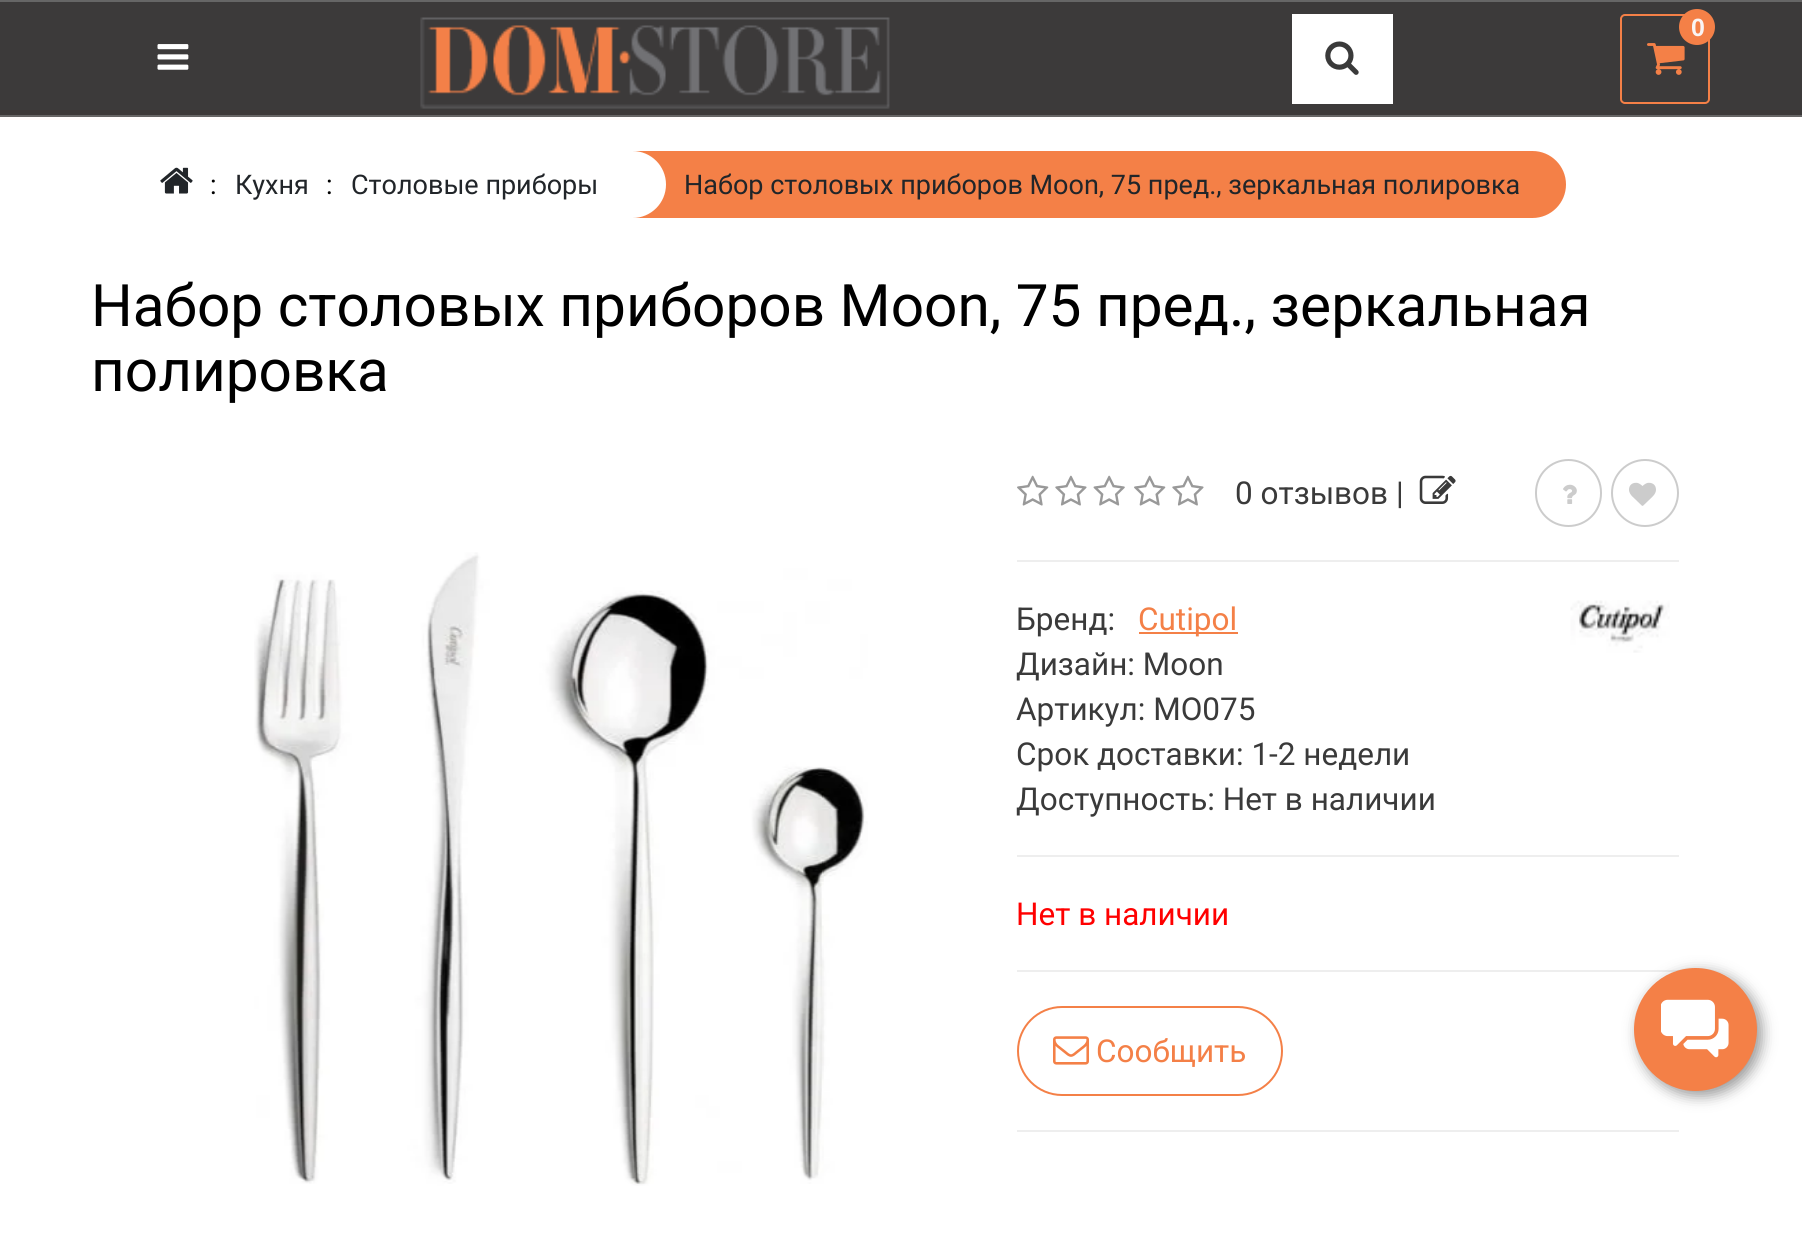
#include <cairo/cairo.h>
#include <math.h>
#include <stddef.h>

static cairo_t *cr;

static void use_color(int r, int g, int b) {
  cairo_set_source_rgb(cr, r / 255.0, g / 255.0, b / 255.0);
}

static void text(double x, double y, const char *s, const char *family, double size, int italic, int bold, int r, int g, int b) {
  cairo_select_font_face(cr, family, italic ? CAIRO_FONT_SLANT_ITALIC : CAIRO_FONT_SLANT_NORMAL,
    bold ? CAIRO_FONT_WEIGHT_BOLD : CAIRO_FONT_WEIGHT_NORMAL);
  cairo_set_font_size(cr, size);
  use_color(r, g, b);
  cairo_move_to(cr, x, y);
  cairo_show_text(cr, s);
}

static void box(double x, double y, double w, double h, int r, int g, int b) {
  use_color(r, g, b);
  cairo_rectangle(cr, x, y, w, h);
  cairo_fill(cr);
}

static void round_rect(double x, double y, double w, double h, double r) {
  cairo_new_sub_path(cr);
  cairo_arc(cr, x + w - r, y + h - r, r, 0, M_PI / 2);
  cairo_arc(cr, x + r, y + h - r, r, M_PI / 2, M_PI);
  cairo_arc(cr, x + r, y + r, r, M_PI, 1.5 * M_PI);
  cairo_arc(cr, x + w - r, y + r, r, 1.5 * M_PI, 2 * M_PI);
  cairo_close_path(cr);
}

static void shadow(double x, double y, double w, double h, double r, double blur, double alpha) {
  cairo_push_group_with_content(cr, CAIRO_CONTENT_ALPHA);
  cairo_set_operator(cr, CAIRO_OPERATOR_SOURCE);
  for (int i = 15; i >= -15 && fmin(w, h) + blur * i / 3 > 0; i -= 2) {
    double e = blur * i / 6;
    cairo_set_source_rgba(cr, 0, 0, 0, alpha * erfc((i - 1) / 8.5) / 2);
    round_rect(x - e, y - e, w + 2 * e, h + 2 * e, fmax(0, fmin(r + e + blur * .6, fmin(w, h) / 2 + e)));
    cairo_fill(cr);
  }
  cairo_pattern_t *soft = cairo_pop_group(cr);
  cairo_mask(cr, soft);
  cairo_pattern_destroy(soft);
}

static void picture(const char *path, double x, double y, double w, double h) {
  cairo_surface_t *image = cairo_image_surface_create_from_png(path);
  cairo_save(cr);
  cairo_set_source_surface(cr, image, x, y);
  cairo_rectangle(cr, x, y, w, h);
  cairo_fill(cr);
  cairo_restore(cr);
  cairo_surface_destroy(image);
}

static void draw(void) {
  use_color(255, 255, 255);
  cairo_paint(cr);
  box(0, 2, 1802, 113, 60, 58, 58);
  box(0, 0, 1802, 2, 102, 102, 102);
  box(0, 115, 1802, 2, 102, 102, 102);
  picture("img_01.png", 420, 17, 470, 92);
  box(1292, 14, 101, 90, 255, 255, 255);
  picture("img_02.png", 1325, 41, 34, 34);
  round_rect(1621, 15, 88, 88, 4);
  use_color(244, 128, 71);
  cairo_stroke(cr);
  picture("img_03.png", 1647, 43, 38, 32);
  cairo_arc(cr, 1697, 27, 18, 0, 2 * M_PI);
  cairo_fill(cr);
  picture("img_04.png", 157, 44, 32, 26);
  picture("img_05.png", 160, 167, 33, 27);
  cairo_new_path(cr);
  cairo_move_to(cr, 617, 151);
  cairo_line_to(cr, 1532.5, 151);
  cairo_curve_to(cr, 1551, 151, 1566, 166, 1566, 184.5);
  cairo_curve_to(cr, 1566, 203, 1551, 218, 1532.5, 218);
  cairo_line_to(cr, 617, 218);
  cairo_close_path(cr);
  cairo_fill(cr);
  use_color(255, 255, 255);
  cairo_new_path(cr);
  cairo_move_to(cr, 599, 151);
  cairo_line_to(cr, 632.5, 151);
  cairo_curve_to(cr, 651, 151, 666, 166, 666, 184.5);
  cairo_curve_to(cr, 666, 203, 651, 218, 632.5, 218);
  cairo_line_to(cr, 599, 218);
  cairo_close_path(cr);
  cairo_fill(cr);
  picture("img_06.png", 254, 552, 614, 634);
  picture("img_07.png", 1017, 475, 32, 31);
  picture("img_08.png", 1055, 475, 32, 31);
  picture("img_09.png", 1093, 475, 32, 31);
  picture("img_07.png", 1134, 475, 32, 31);
  picture("img_08.png", 1172, 475, 32, 31);
  picture("img_10.png", 1419, 475, 37, 29);
  round_rect(1536, 460, 65, 66, 32.5);
  use_color(204, 204, 204);
  cairo_stroke(cr);
  picture("img_11.png", 1563, 484, 14, 20);
  cairo_arc(cr, 1645, 493, 33, 0, 2 * M_PI);
  cairo_stroke(cr);
  picture("img_12.png", 1629, 482, 27, 24);
  box(1017, 560, 662, 2, 238, 238, 238);
  box(1139, 632, 99, 2, 244, 128, 71);
  picture("img_13.png", 1570, 600, 100, 53);
  box(1017, 855, 662, 2, 238, 238, 238);
  box(1017, 970, 662, 2, 238, 238, 238);
  round_rect(1018, 1007, 264, 88, 44);
  use_color(244, 128, 71);
  cairo_stroke(cr);
  picture("img_14.png", 1053, 1036, 36, 29);
  box(1017, 1130, 662, 2, 238, 238, 238);
  use_color(0, 0, 0);
  shadow(1638, 972, 124, 124, 62, 7, 0.4);
  use_color(244, 128, 71);
  cairo_arc(cr, 1695.5, 1029.5, 61.5, 0, 2 * M_PI);
  cairo_fill(cr);
  picture("img_15.png", 1661, 999, 68, 59);
  text(1691, 36, "0", "Liberation Sans", 25, 0, 1, 250, 245, 245);
  text(210, 194, ":", "Roboto", 27, 0, 0, 0, 0, 0);
  text(235, 194, "Кухня", "Roboto", 27, 0, 0, 33, 37, 41);
  text(326, 194, ":", "Roboto", 27, 0, 0, 0, 0, 0);
  text(351, 194, "Столовые приборы", "Roboto", 27, 0, 0, 33, 37, 41);
  text(684, 194, "Набор столовых приборов Moon, 75 пред., зеркальная полировка", "Roboto", 27, 0, 0, 33, 37, 41);
  text(91, 326, "Набор столовых приборов Moon, 75 пред., зеркальная", "Roboto", 58.5, 0, 0, 0, 0, 0);
  text(91, 391, "полировка", "Roboto", 58.5, 0, 0, 0, 0, 0);
  text(1235, 504, "0 отзывов |", "Roboto", 31.5, 0, 0, 58, 58, 58);
  text(1016, 630, "Бренд:", "Roboto", 31.5, 0, 0, 58, 58, 58);
  text(1138, 630, "Cutipol", "Roboto", 31.5, 0, 0, 244, 128, 71);
  text(1016, 675, "Дизайн: Moon", "Roboto", 31.5, 0, 0, 58, 58, 58);
  text(1016, 720, "Артикул: MO075", "Roboto", 31.5, 0, 0, 58, 58, 58);
  text(1016, 765, "Срок доставки: 1-2 недели", "Roboto", 31.5, 0, 0, 58, 58, 58);
  text(1016, 810, "Доступность: Нет в наличии", "Roboto", 31.5, 0, 0, 58, 58, 58);
  text(1016, 925, "Нет в наличии", "Roboto", 31.5, 0, 0, 255, 0, 0);
  text(1096, 1062, "Сообщить", "Roboto", 31.5, 0, 0, 244, 128, 71);
}

int main(void) {
  cairo_surface_t *surface = cairo_image_surface_create(CAIRO_FORMAT_RGB24, 1802, 1248);
  cr = cairo_create(surface);
  cairo_font_options_t *options = cairo_font_options_create();
  cairo_font_options_set_hint_metrics(options, CAIRO_HINT_METRICS_OFF);
  cairo_font_options_set_hint_style(options, CAIRO_HINT_STYLE_NONE);
  cairo_set_font_options(cr, options);
  cairo_set_miter_limit(cr, 4);
  draw();
  cairo_surface_write_to_png(surface, "out.png");
  cairo_font_options_destroy(options);
  cairo_destroy(cr);
  cairo_surface_destroy(surface);
  return 0;
}
